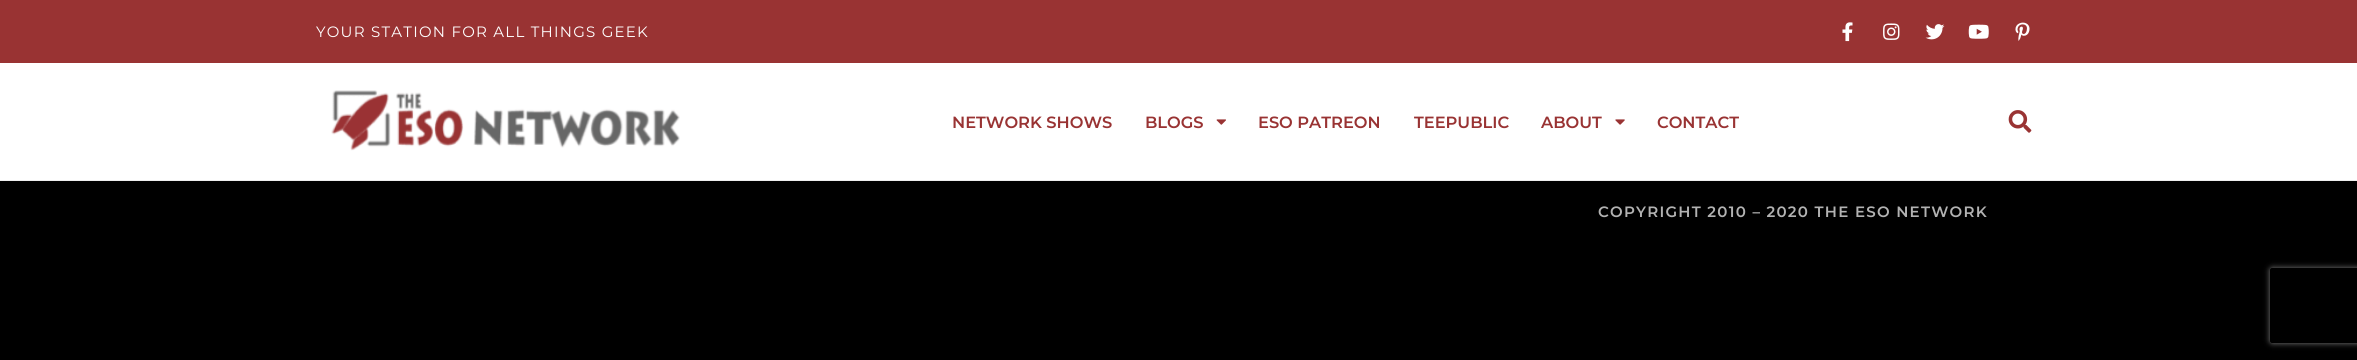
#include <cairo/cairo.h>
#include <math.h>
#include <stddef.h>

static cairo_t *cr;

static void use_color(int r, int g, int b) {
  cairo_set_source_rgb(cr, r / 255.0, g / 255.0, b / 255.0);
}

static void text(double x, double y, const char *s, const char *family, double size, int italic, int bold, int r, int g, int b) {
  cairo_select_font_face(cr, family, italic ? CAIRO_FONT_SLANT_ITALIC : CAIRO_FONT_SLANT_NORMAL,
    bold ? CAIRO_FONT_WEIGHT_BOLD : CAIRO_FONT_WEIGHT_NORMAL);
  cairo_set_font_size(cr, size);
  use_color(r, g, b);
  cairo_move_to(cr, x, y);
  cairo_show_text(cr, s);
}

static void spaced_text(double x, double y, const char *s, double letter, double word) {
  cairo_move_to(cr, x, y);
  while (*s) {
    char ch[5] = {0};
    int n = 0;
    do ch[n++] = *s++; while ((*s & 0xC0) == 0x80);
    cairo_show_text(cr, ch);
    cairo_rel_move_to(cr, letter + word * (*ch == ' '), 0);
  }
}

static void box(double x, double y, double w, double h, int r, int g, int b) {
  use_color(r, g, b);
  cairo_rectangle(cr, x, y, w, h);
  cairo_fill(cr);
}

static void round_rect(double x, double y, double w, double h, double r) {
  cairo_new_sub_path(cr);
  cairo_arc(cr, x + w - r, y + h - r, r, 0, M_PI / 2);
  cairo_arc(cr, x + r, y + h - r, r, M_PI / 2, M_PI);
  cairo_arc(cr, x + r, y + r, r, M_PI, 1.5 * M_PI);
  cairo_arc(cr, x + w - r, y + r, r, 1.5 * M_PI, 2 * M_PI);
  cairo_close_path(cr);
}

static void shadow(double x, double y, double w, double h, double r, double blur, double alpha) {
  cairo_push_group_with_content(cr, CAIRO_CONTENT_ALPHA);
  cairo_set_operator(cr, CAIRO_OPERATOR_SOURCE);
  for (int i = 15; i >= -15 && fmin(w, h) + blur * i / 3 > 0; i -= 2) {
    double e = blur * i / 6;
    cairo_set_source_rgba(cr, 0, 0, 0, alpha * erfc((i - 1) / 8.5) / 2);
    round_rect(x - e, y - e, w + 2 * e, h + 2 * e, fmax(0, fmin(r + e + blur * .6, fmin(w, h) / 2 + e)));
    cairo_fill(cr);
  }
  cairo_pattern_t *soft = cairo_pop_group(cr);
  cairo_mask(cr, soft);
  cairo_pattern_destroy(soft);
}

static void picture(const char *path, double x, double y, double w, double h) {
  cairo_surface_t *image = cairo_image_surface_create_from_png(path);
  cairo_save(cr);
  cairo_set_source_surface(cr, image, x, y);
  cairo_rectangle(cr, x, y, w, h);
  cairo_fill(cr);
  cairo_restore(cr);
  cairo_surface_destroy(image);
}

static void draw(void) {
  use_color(0, 0, 0);
  cairo_paint(cr);
  box(0, 0, 2357, 63, 153, 51, 51);
  picture("img_01.png", 1842, 22, 11, 20);
  picture("img_02.png", 1883, 23, 17, 17);
  picture("img_03.png", 1925, 24, 20, 16);
  picture("img_04.png", 1968, 24, 21, 15);
  picture("img_05.png", 2015, 22, 15, 19);
  box(0, 63, 2357, 117, 255, 255, 255);
  box(0, 180, 2357, 1, 238, 238, 238);
  picture("img_06.png", 331, 90, 349, 61);
  picture("img_07.png", 1216, 119, 10, 6);
  picture("img_08.png", 1615, 119, 10, 6);
  picture("img_09.png", 2008, 110, 24, 23);
  cairo_save(cr);
  cairo_set_fill_rule(cr, CAIRO_FILL_RULE_EVEN_ODD);
  cairo_new_path(cr);
  cairo_move_to(cr, 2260, 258);
  cairo_line_to(cr, 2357, 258);
  cairo_line_to(cr, 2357, 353);
  cairo_line_to(cr, 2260, 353);
  cairo_close_path(cr);
  cairo_move_to(cr, 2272.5, 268);
  cairo_line_to(cr, 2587.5, 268);
  cairo_curve_to(cr, 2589, 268, 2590, 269, 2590, 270.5);
  cairo_line_to(cr, 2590, 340.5);
  cairo_curve_to(cr, 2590, 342, 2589, 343, 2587.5, 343);
  cairo_line_to(cr, 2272.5, 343);
  cairo_curve_to(cr, 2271, 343, 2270, 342, 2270, 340.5);
  cairo_line_to(cr, 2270, 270.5);
  cairo_curve_to(cr, 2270, 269, 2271, 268, 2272.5, 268);
  cairo_close_path(cr);
  cairo_clip(cr);
  use_color(128, 128, 128);
  shadow(2270, 268, 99, 75, 2.5, 3, 1);
  cairo_restore(cr);
  cairo_select_font_face(cr, "Montserrat", CAIRO_FONT_SLANT_NORMAL, CAIRO_FONT_WEIGHT_NORMAL);
  cairo_set_font_size(cr, 15);
  use_color(255, 255, 255);
  spaced_text(316, 37, "YOUR STATION FOR ALL THINGS GEEK", 1.25, 0);
  text(952, 128, "NETWORK SHOWS", "Montserrat SemiBold", 16.25, 0, 0, 153, 51, 51);
  text(1145, 128, "BLOGS", "Montserrat SemiBold", 16.25, 0, 0, 153, 51, 51);
  text(1258, 128, "ESO PATREON", "Montserrat SemiBold", 16.25, 0, 0, 153, 51, 51);
  text(1414, 128, "TEEPUBLIC", "Montserrat SemiBold", 16.25, 0, 0, 153, 51, 51);
  text(1541, 128, "ABOUT", "Montserrat SemiBold", 16.25, 0, 0, 153, 51, 51);
  text(1657, 128, "CONTACT", "Montserrat SemiBold", 16.25, 0, 0, 153, 51, 51);
  cairo_set_font_size(cr, 15);
  use_color(178, 178, 178);
  spaced_text(1598, 217, "COPYRIGHT 2010 – 2020 THE ESO NETWORK", 1.25, 0);
}

int main(void) {
  cairo_surface_t *surface = cairo_image_surface_create(CAIRO_FORMAT_RGB24, 2357, 360);
  cr = cairo_create(surface);
  cairo_font_options_t *options = cairo_font_options_create();
  cairo_font_options_set_hint_metrics(options, CAIRO_HINT_METRICS_OFF);
  cairo_font_options_set_hint_style(options, CAIRO_HINT_STYLE_NONE);
  cairo_set_font_options(cr, options);
  cairo_set_miter_limit(cr, 4);
  draw();
  cairo_surface_write_to_png(surface, "out.png");
  cairo_font_options_destroy(options);
  cairo_destroy(cr);
  cairo_surface_destroy(surface);
  return 0;
}
